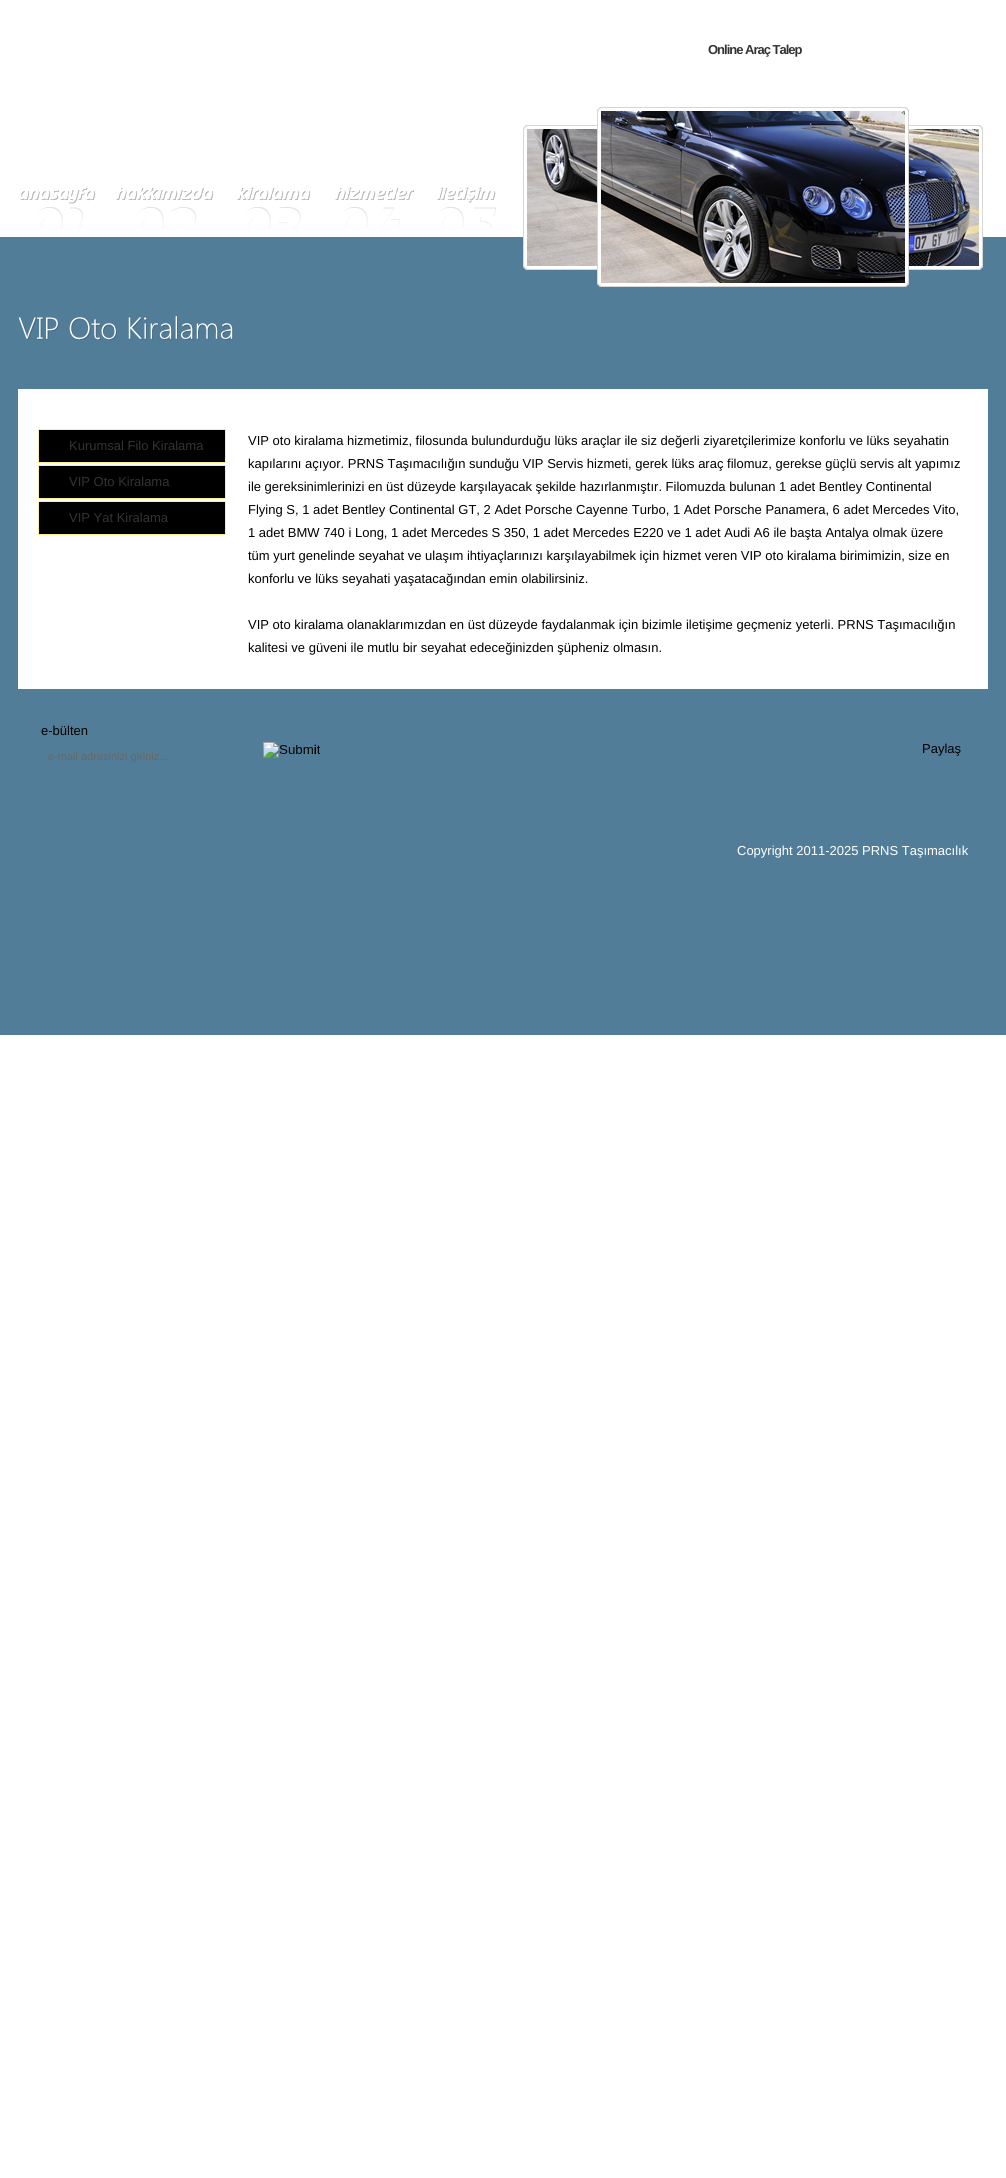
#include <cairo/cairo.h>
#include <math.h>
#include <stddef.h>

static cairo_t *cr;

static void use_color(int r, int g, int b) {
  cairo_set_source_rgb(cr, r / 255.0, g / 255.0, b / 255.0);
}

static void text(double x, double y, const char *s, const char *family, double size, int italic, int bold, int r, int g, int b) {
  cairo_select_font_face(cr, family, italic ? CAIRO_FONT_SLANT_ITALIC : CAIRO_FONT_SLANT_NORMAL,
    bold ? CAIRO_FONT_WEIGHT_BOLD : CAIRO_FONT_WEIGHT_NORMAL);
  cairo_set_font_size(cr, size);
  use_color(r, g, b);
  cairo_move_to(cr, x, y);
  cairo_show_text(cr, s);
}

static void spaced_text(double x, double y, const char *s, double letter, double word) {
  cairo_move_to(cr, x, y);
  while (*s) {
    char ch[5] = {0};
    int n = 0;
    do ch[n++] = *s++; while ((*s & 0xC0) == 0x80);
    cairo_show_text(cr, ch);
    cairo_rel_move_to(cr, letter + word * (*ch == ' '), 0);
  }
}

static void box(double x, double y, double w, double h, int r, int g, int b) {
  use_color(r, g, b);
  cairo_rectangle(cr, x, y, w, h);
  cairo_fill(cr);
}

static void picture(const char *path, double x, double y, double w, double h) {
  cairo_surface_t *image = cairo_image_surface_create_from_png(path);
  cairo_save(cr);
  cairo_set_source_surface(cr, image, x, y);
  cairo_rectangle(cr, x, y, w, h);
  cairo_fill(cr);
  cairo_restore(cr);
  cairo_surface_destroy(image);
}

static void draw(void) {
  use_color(255, 255, 255);
  cairo_paint(cr);
  box(0, 237, 1006, 798, 82, 125, 153);
  picture("img_01.png", 523, 107, 460, 180);
  picture("img_02.png", 19, 188, 77, 41);
  picture("img_03.png", 116, 188, 98, 41);
  picture("img_04.png", 237, 187, 74, 44);
  picture("img_05.png", 335, 187, 79, 42);
  picture("img_06.png", 437, 187, 59, 43);
  picture("img_07.png", 18, 317, 41, 23);
  picture("img_08.png", 69, 317, 48, 24);
  picture("img_09.png", 128, 316, 106, 24);
  box(18, 389, 970, 300, 255, 255, 255);
  use_color(0, 0, 0);
  cairo_rectangle(cr, 38.5, 429.5, 187, 33);
  cairo_fill_preserve(cr);
  use_color(250, 239, 146);
  cairo_set_line_width(cr, 1);
  cairo_stroke(cr);
  use_color(0, 0, 0);
  cairo_rectangle(cr, 38.5, 465.5, 187, 33);
  cairo_fill_preserve(cr);
  use_color(250, 239, 146);
  cairo_stroke(cr);
  use_color(0, 0, 0);
  cairo_rectangle(cr, 38.5, 501.5, 187, 33);
  cairo_fill_preserve(cr);
  use_color(250, 239, 146);
  cairo_stroke(cr);
  picture("img_10.png", 263, 742, 57, 16);
  cairo_select_font_face(cr, "Liberation Sans", CAIRO_FONT_SLANT_NORMAL, CAIRO_FONT_WEIGHT_BOLD);
  cairo_set_font_size(cr, 13);
  use_color(51, 51, 51);
  spaced_text(708, 54, "Online Araç Talep", -1, 0);
  text(69, 450, "Kurumsal Filo Kiralama", "Liberation Sans", 13, 0, 0, 51, 51, 51);
  text(69, 486, "VIP Oto Kiralama", "Liberation Sans", 13, 0, 0, 51, 51, 51);
  text(69, 522, "VIP Yat Kiralama", "Liberation Sans", 13, 0, 0, 51, 51, 51);
  text(248, 445, "VIP oto kiralama hizmetimiz, filosunda bulundurduğu lüks araçlar ile siz değerli ziyaretçilerimize konforlu ve lüks seyahatin", "Liberation Sans", 13, 0, 0, 0, 0, 0);
  text(248, 468, "kapılarını açıyor. PRNS Taşımacılığın sunduğu VIP Servis hizmeti, gerek lüks araç filomuz, gerekse güçlü servis alt yapımız", "Liberation Sans", 13, 0, 0, 0, 0, 0);
  text(248, 491, "ile gereksinimlerinizi en üst düzeyde karşılayacak şekilde hazırlanmıştır. Filomuzda bulunan 1 adet Bentley Continental", "Liberation Sans", 13, 0, 0, 0, 0, 0);
  text(248, 514, "Flying S, 1 adet Bentley Continental GT, 2 Adet Porsche Cayenne Turbo, 1 Adet Porsche Panamera, 6 adet Mercedes Vito,", "Liberation Sans", 13, 0, 0, 0, 0, 0);
  text(248, 537, "1 adet BMW 740 i Long, 1 adet Mercedes S 350, 1 adet Mercedes E220 ve 1 adet Audi A6 ile başta Antalya olmak üzere", "Liberation Sans", 13, 0, 0, 0, 0, 0);
  text(248, 560, "tüm yurt genelinde seyahat ve ulaşım ihtiyaçlarınızı karşılayabilmek için hizmet veren VIP oto kiralama birimimizin, size en", "Liberation Sans", 13, 0, 0, 0, 0, 0);
  text(248, 583, "konforlu ve lüks seyahati yaşatacağından emin olabilirsiniz.", "Liberation Sans", 13, 0, 0, 0, 0, 0);
  text(248, 629, "VIP oto kiralama olanaklarımızdan en üst düzeyde faydalanmak için bizimle iletişime geçmeniz yeterli. PRNS Taşımacılığın", "Liberation Sans", 13, 0, 0, 0, 0, 0);
  text(248, 652, "kalitesi ve güveni ile mutlu bir seyahat edeceğinizden şüpheniz olmasın.", "Liberation Sans", 13, 0, 0, 0, 0, 0);
  text(41, 735, "e-bülten", "Liberation Sans", 13, 0, 0, 0, 0, 0);
  text(314, 754, "i", "Liberation Sans", 13, 0, 0, 0, 0, 0);
  text(48, 760, "e-mail adresinizi giriniz...", "Liberation Sans", 11, 0, 0, 102, 102, 102);
  text(922, 753, "Paylaş", "Liberation Sans", 13, 0, 0, 0, 0, 0);
  text(737, 855, "Copyright 2011-2025 PRNS Taşımacılık", "Liberation Sans", 13, 0, 0, 255, 255, 255);
}

int main(void) {
  cairo_surface_t *surface = cairo_image_surface_create(CAIRO_FORMAT_RGB24, 1006, 2178);
  cr = cairo_create(surface);
  cairo_font_options_t *options = cairo_font_options_create();
  cairo_font_options_set_hint_metrics(options, CAIRO_HINT_METRICS_OFF);
  cairo_font_options_set_hint_style(options, CAIRO_HINT_STYLE_NONE);
  cairo_set_font_options(cr, options);
  cairo_set_miter_limit(cr, 4);
  draw();
  cairo_surface_write_to_png(surface, "out.png");
  cairo_font_options_destroy(options);
  cairo_destroy(cr);
  cairo_surface_destroy(surface);
  return 0;
}
